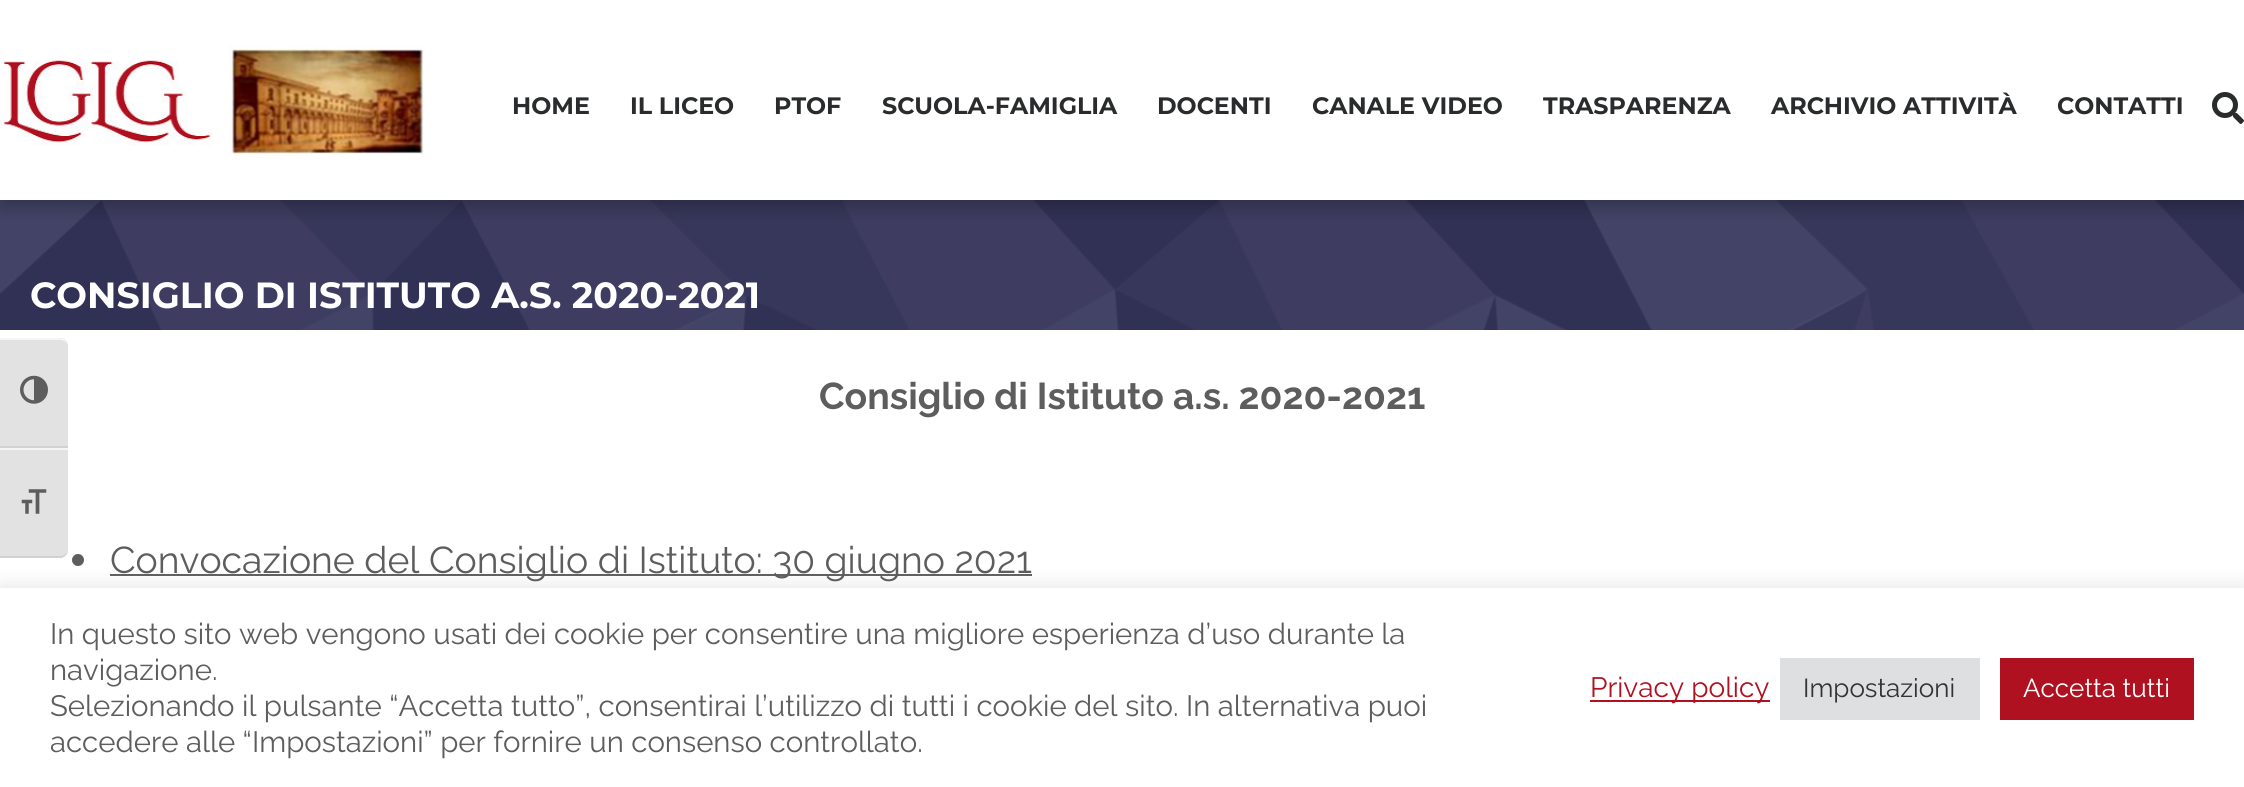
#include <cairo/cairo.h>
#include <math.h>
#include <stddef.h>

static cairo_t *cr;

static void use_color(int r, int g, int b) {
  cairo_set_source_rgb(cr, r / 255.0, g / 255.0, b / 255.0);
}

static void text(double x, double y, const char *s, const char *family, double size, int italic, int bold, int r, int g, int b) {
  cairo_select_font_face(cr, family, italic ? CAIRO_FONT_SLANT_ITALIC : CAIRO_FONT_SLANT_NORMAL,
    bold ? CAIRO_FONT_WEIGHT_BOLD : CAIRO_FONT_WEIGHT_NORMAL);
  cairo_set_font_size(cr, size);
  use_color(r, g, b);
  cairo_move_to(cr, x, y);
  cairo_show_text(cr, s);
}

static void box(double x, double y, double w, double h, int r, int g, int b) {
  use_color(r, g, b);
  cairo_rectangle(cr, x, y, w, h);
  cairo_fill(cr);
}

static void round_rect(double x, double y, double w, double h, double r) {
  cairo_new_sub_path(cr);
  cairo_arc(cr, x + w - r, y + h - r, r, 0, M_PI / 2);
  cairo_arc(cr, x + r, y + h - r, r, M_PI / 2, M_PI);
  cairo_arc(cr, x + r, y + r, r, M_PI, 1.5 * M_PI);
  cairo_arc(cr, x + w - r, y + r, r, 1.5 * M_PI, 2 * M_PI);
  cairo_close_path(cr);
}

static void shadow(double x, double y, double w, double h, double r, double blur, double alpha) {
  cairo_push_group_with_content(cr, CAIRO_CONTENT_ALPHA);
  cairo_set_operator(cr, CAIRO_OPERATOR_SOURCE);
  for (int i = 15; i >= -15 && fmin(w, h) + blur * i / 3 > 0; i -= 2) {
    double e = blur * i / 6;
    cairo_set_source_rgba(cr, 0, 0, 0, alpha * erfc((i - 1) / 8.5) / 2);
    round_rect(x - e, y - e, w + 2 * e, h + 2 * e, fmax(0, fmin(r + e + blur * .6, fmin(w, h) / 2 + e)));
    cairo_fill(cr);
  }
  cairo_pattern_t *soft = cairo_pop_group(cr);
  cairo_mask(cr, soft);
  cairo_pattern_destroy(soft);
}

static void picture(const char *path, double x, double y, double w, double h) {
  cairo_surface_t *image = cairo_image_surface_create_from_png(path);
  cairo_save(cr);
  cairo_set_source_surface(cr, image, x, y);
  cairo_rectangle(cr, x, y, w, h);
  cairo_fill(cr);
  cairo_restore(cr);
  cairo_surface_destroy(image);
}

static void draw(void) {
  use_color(255, 255, 255);
  cairo_paint(cr);
  picture("img_03.png", 0, 200, 2244, 130);
  cairo_save(cr);
  cairo_rectangle(cr, 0, 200, 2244, 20);
  cairo_clip(cr);
  use_color(0, 0, 0);
  shadow(0, 8, 2244, 200, 0, 9, 0.24);
  cairo_restore(cr);
  picture("img_01.png", 0, 44, 424, 110);
  picture("img_02.png", 2212, 92, 32, 32);
  use_color(93, 93, 93);
  cairo_arc(cr, 78, 560, 6, 0, 2 * M_PI);
  cairo_fill(cr);
  box(110, 574, 922, 2, 93, 93, 93);
  use_color(226, 226, 226);
  cairo_new_path(cr);
  cairo_move_to(cr, 0, 338);
  cairo_line_to(cr, 60, 338);
  cairo_curve_to(cr, 64.5, 338, 68, 341.5, 68, 346);
  cairo_line_to(cr, 68, 448);
  cairo_line_to(cr, 0, 448);
  cairo_close_path(cr);
  cairo_fill(cr);
  use_color(245, 245, 245);
  cairo_new_path(cr);
  cairo_move_to(cr, 0, 338);
  cairo_line_to(cr, 0, 340);
  cairo_line_to(cr, 60, 340);
  cairo_curve_to(cr, 64, 340, 68, 343, 68, 346);
  cairo_curve_to(cr, 68, 342, 64, 338, 60, 338);
  cairo_close_path(cr);
  cairo_fill(cr);
  box(0, 446, 68, 2, 210, 210, 210);
  picture("img_04.png", 20, 375, 28, 29);
  use_color(172, 171, 171);
  shadow(0, 586, 2244, 200, 0, 10, 0.3);
  use_color(226, 226, 226);
  cairo_new_path(cr);
  cairo_move_to(cr, 0, 448);
  cairo_line_to(cr, 68, 448);
  cairo_line_to(cr, 68, 550);
  cairo_curve_to(cr, 68, 554.5, 64.5, 558, 60, 558);
  cairo_line_to(cr, 0, 558);
  cairo_close_path(cr);
  cairo_fill(cr);
  box(0, 448, 68, 2, 245, 245, 245);
  use_color(210, 210, 210);
  cairo_new_path(cr);
  cairo_move_to(cr, 0, 556);
  cairo_line_to(cr, 0, 558);
  cairo_line_to(cr, 60, 558);
  cairo_curve_to(cr, 64, 558, 68, 554, 68, 550);
  cairo_curve_to(cr, 68, 553, 64, 556, 60, 556);
  cairo_close_path(cr);
  cairo_fill(cr);
  picture("img_05.png", 21, 489, 26, 25);
  box(0, 588, 2244, 199, 255, 255, 255);
  box(1590, 700, 180, 2, 176, 17, 32);
  box(1780, 658, 200, 62, 222, 223, 224);
  box(2000, 658, 194, 62, 176, 17, 32);
  text(512, 114, "HOME", "Montserrat", 23.75, 0, 1, 42, 43, 44);
  text(630, 114, "IL LICEO", "Montserrat", 23.75, 0, 1, 42, 43, 44);
  text(774, 114, "PTOF", "Montserrat", 23.75, 0, 1, 42, 43, 44);
  text(882, 114, "SCUOLA-FAMIGLIA", "Montserrat", 23.75, 0, 1, 42, 43, 44);
  text(1157, 114, "DOCENTI", "Montserrat", 23.75, 0, 1, 42, 43, 44);
  text(1312, 114, "CANALE VIDEO", "Montserrat", 23.75, 0, 1, 42, 43, 44);
  text(1543, 114, "TRASPARENZA", "Montserrat", 23.75, 0, 1, 42, 43, 44);
  text(1771, 114, "ARCHIVIO ATTIVITÀ", "Montserrat", 23.75, 0, 1, 42, 43, 44);
  text(2057, 114, "CONTATTI", "Montserrat", 23.75, 0, 1, 42, 43, 44);
  text(30, 308, "CONSIGLIO DI ISTITUTO A.S. 2020-2021", "Montserrat", 36.4, 0, 1, 255, 255, 255);
  text(819, 409, "Consiglio di Istituto a.s. 2020-2021", "Raleway", 37.3, 0, 1, 93, 93, 93);
  text(110, 573, "Convocazione del Consiglio di Istituto: 30 giugno 2021", "Raleway", 37.3, 0, 0, 93, 93, 93);
  text(50, 644, "In questo sito web vengono usati dei cookie per consentire una migliore esperienza d’uso durante la", "Raleway", 29.35, 0, 0, 93, 93, 93);
  text(50, 680, "navigazione.", "Raleway", 29.35, 0, 0, 93, 93, 93);
  text(50, 716, "Selezionando il pulsante “Accetta tutto”, consentirai l’utilizzo di tutti i cookie del sito. In alternativa puoi", "Raleway", 29.35, 0, 0, 93, 93, 93);
  text(50, 752, "accedere alle “Impostazioni” per fornire un consenso controllato.", "Raleway", 29.35, 0, 0, 93, 93, 93);
  text(1590, 697, "Privacy policy", "Raleway", 28, 0, 0, 176, 17, 32);
  text(1803, 697, "Impostazioni", "Raleway", 26, 0, 0, 51, 51, 51);
  text(2023, 697, "Accetta tutti", "Raleway", 26, 0, 0, 255, 255, 255);
}

int main(void) {
  cairo_surface_t *surface = cairo_image_surface_create(CAIRO_FORMAT_RGB24, 2244, 787);
  cr = cairo_create(surface);
  cairo_font_options_t *options = cairo_font_options_create();
  cairo_font_options_set_hint_metrics(options, CAIRO_HINT_METRICS_OFF);
  cairo_font_options_set_hint_style(options, CAIRO_HINT_STYLE_NONE);
  cairo_set_font_options(cr, options);
  cairo_set_miter_limit(cr, 4);
  draw();
  cairo_surface_write_to_png(surface, "out.png");
  cairo_font_options_destroy(options);
  cairo_destroy(cr);
  cairo_surface_destroy(surface);
  return 0;
}
